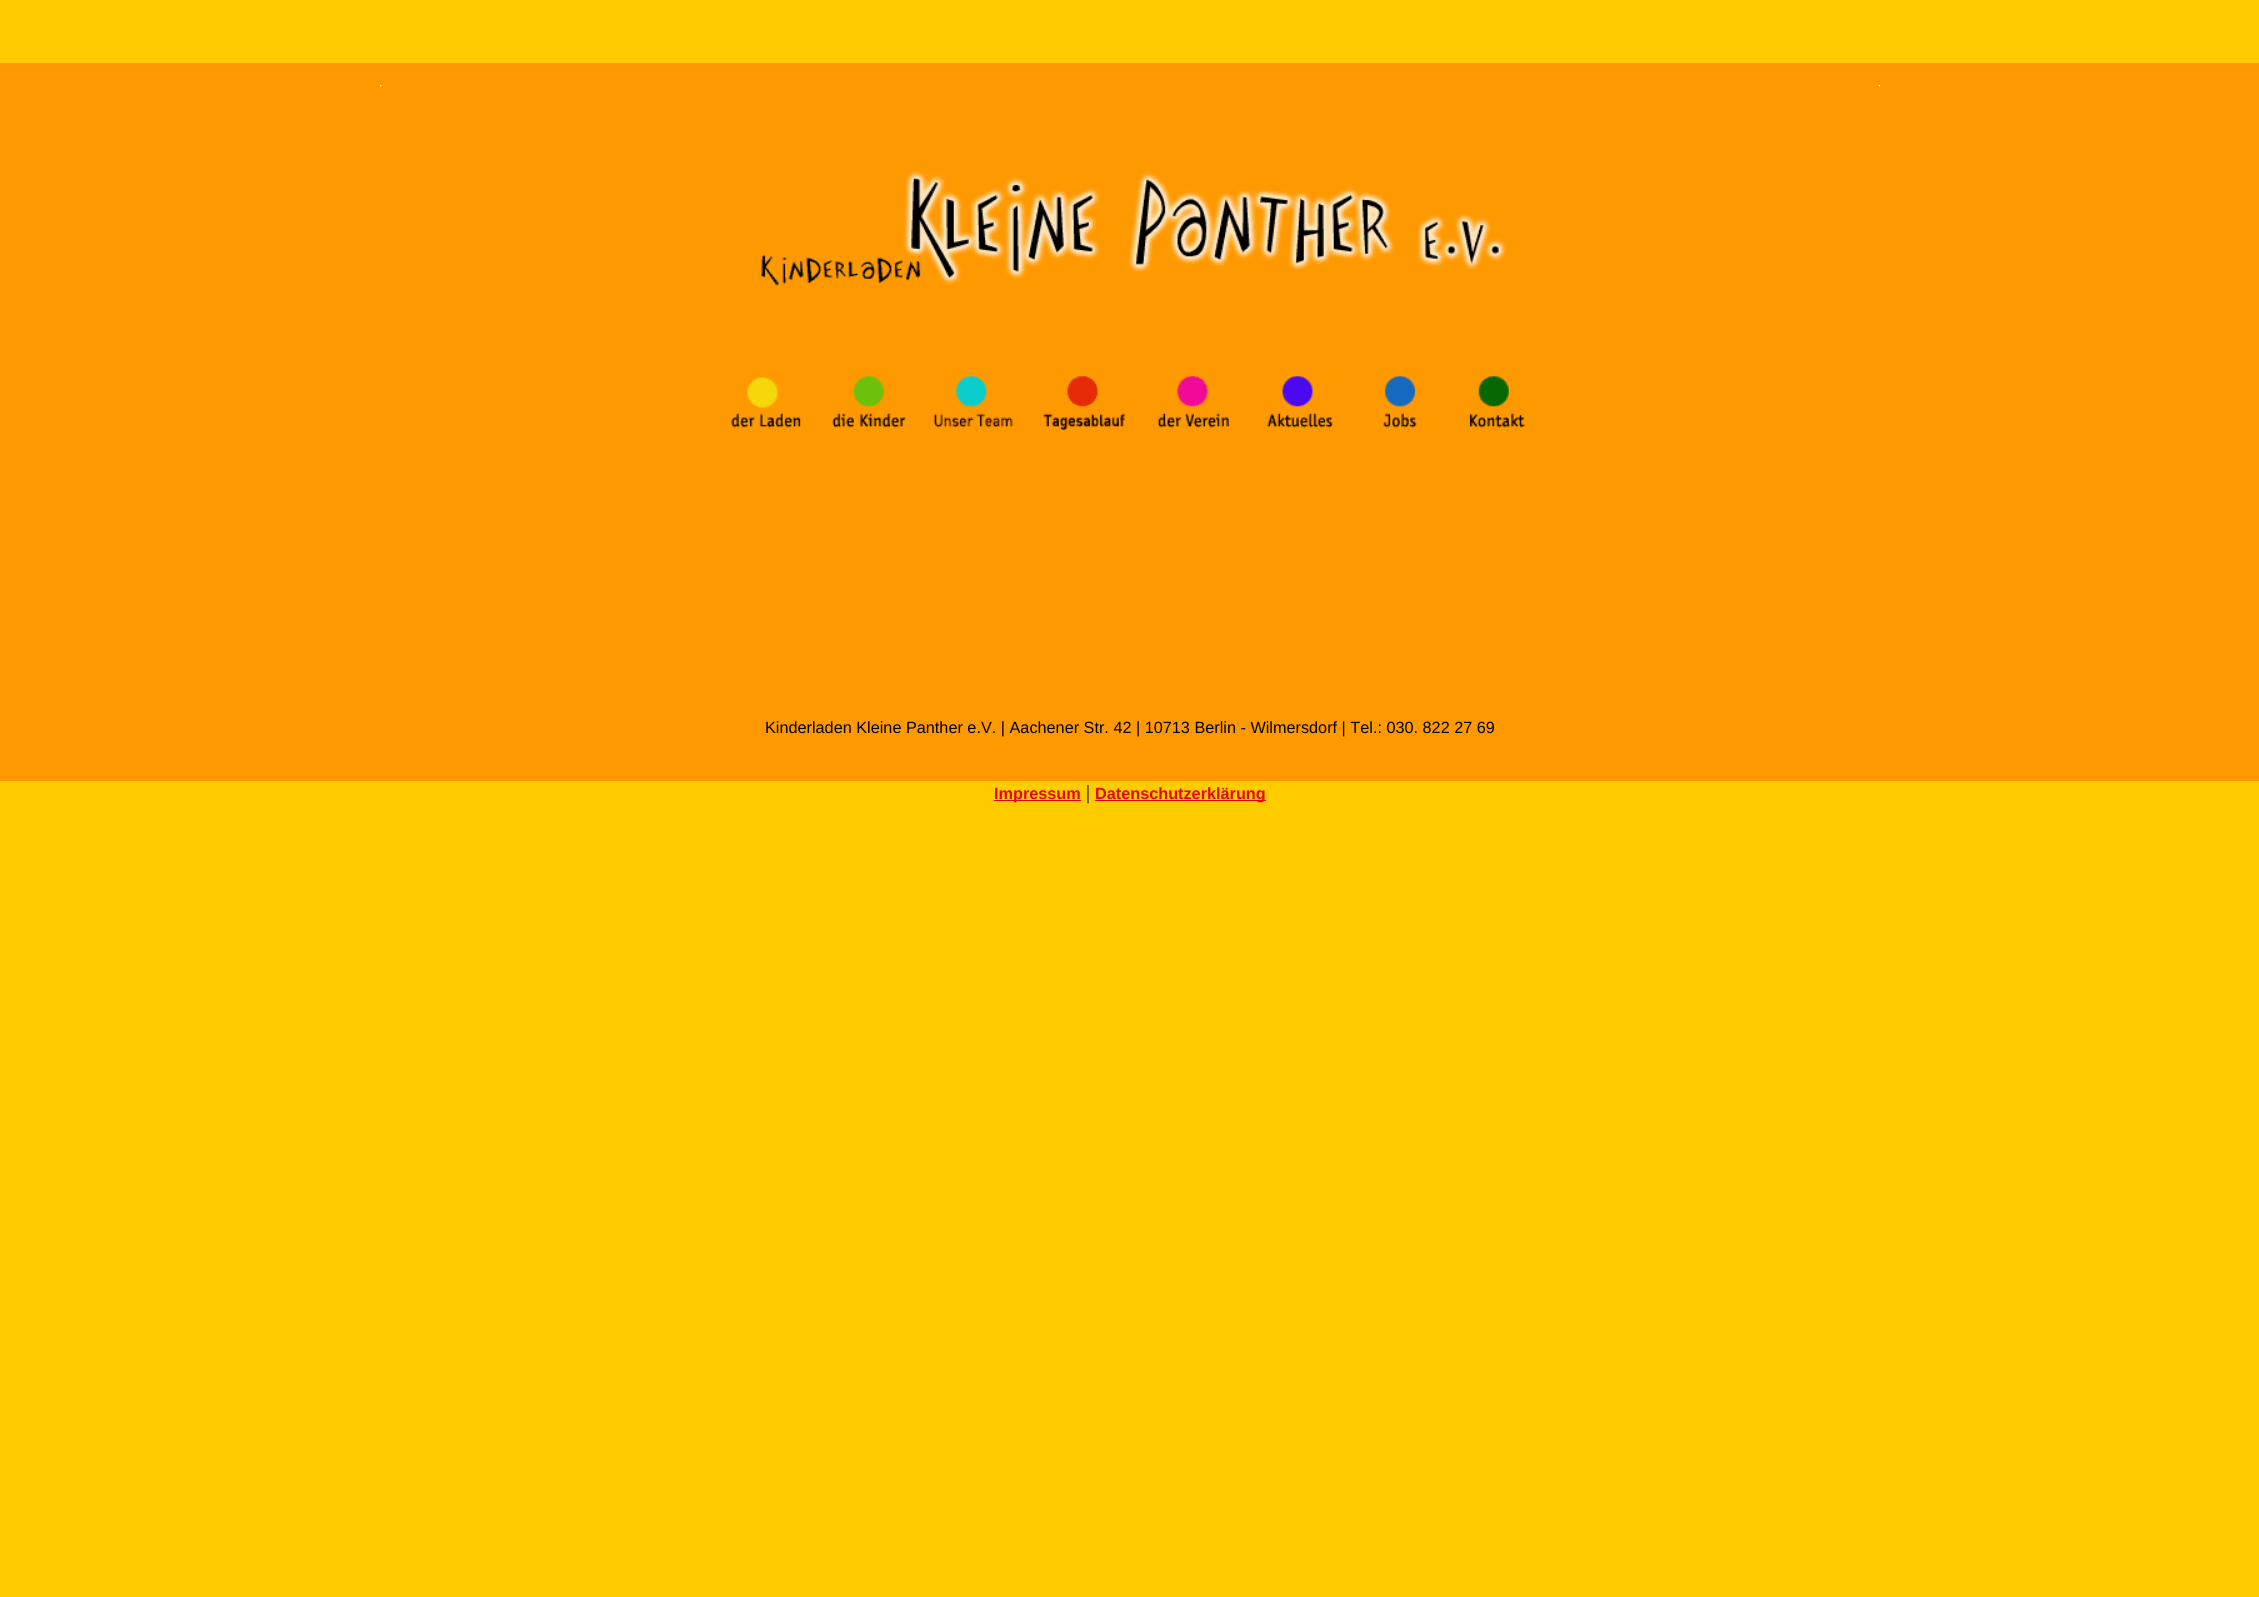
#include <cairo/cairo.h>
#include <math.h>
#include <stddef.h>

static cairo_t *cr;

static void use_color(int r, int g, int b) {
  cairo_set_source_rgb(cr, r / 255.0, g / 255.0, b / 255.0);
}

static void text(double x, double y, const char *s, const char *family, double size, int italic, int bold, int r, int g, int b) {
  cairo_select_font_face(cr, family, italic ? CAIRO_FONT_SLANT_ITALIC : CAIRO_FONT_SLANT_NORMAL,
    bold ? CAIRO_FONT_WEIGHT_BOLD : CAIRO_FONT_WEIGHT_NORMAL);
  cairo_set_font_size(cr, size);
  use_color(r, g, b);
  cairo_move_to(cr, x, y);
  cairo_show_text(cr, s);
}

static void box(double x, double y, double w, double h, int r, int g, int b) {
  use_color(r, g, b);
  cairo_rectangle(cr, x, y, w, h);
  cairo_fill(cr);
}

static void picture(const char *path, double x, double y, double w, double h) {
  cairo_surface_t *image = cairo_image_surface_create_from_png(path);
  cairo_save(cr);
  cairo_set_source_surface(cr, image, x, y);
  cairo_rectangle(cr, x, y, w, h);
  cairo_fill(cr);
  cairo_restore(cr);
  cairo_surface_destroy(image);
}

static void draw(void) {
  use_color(255, 204, 0);
  cairo_paint(cr);
  box(0, 63, 2259, 718, 255, 153, 0);
  picture("img_01.png", 380, 85, 2, 2);
  picture("img_02.png", 1878, 85, 2, 2);
  picture("img_03.png", 761, 170, 746, 116);
  picture("img_04.png", 731, 377, 70, 51);
  picture("img_05.png", 832, 376, 74, 52);
  picture("img_06.png", 933, 376, 80, 52);
  picture("img_07.png", 1043, 376, 83, 55);
  picture("img_08.png", 1157, 376, 72, 52);
  picture("img_09.png", 1267, 376, 66, 52);
  picture("img_10.png", 1383, 376, 34, 52);
  picture("img_11.png", 1469, 376, 57, 52);
  box(994, 800, 87, 1, 231, 4, 14);
  box(1095, 800, 171, 1, 231, 4, 14);
  text(765, 733, "Kinderladen Kleine Panther e.V. | Aachener Str. 42 | 10713 Berlin - Wilmersdorf | Tel.: 030. 822 27 69", "Liberation Sans", 16.25, 0, 0, 0, 0, 0);
  text(994, 799, "Impressum", "Liberation Sans", 16.25, 0, 1, 231, 4, 14);
  text(1086, 799, "|", "Liberation Serif", 20, 0, 0, 0, 0, 0);
  text(1095, 799, "Datenschutzerklärung", "Liberation Sans", 16.25, 0, 1, 231, 4, 14);
}

int main(void) {
  cairo_surface_t *surface = cairo_image_surface_create(CAIRO_FORMAT_RGB24, 2259, 1597);
  cr = cairo_create(surface);
  cairo_font_options_t *options = cairo_font_options_create();
  cairo_font_options_set_hint_metrics(options, CAIRO_HINT_METRICS_OFF);
  cairo_font_options_set_hint_style(options, CAIRO_HINT_STYLE_NONE);
  cairo_set_font_options(cr, options);
  cairo_set_miter_limit(cr, 4);
  draw();
  cairo_surface_write_to_png(surface, "out.png");
  cairo_font_options_destroy(options);
  cairo_destroy(cr);
  cairo_surface_destroy(surface);
  return 0;
}
